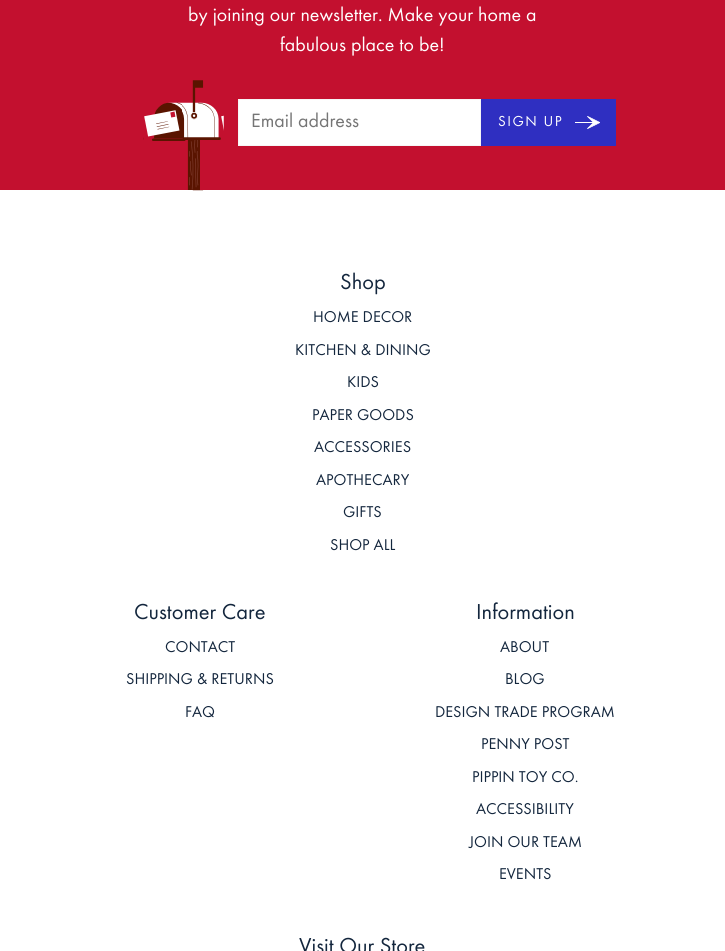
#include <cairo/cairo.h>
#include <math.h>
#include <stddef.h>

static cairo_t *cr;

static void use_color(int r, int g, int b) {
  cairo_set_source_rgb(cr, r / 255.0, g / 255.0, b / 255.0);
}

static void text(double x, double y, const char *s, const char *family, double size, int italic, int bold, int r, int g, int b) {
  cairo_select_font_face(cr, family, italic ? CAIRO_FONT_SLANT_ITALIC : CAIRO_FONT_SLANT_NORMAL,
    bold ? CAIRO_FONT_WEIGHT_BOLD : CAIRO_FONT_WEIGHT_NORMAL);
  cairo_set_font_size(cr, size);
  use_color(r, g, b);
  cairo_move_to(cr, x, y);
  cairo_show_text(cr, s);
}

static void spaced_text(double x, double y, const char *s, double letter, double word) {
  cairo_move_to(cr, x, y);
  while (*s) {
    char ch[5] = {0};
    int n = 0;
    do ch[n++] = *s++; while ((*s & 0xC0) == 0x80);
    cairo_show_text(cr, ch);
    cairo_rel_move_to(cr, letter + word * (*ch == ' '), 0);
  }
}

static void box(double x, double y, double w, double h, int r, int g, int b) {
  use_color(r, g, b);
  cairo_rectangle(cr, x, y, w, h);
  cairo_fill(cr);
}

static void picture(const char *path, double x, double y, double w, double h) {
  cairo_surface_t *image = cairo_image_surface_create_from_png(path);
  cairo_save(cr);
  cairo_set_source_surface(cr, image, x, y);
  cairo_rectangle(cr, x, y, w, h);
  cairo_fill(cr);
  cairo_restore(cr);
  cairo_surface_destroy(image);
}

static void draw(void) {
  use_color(255, 255, 255);
  cairo_paint(cr);
  box(0, 0, 725, 190, 195, 16, 47);
  picture("img_01.png", 143, 80, 81, 111);
  use_color(255, 255, 255);
  cairo_rectangle(cr, 238.5, 99.5, 242, 46);
  cairo_fill_preserve(cr);
  use_color(246, 246, 246);
  cairo_set_line_width(cr, 1);
  cairo_stroke(cr);
  box(481, 99, 135, 47, 47, 47, 193);
  picture("img_02.png", 575, 116, 25, 13);
  text(188, 21, "by joining our newsletter. Make your home a", "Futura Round", 20, 0, 0, 255, 255, 255);
  text(280, 51, "fabulous place to be!", "Futura Round", 20, 0, 0, 255, 255, 255);
  text(251, 127, "Email address", "Futura Round", 20, 0, 0, 117, 117, 117);
  cairo_set_font_size(cr, 15);
  use_color(255, 255, 255);
  spaced_text(498, 126, "SIGN UP", 1.5, 0);
  text(340, 289, "Shop", "Futura Round", 22.5, 0, 0, 19, 38, 61);
  text(313, 322, "HOME DECOR", "Futura Round", 16.25, 0, 0, 19, 38, 61);
  text(295, 355, "KITCHEN & DINING", "Futura Round", 16.25, 0, 0, 19, 38, 61);
  text(347, 387, "KIDS", "Futura Round", 16.25, 0, 0, 19, 38, 61);
  text(312, 420, "PAPER GOODS", "Futura Round", 16.25, 0, 0, 19, 38, 61);
  text(314, 452, "ACCESSORIES", "Futura Round", 16.25, 0, 0, 19, 38, 61);
  text(316, 485, "APOTHECARY", "Futura Round", 16.25, 0, 0, 19, 38, 61);
  text(343, 517, "GIFTS", "Futura Round", 16.25, 0, 0, 19, 38, 61);
  text(330, 550, "SHOP ALL", "Futura Round", 16.25, 0, 0, 19, 38, 61);
  text(134, 619, "Customer Care", "Futura Round", 22.5, 0, 0, 19, 38, 61);
  text(165, 652, "CONTACT", "Futura Round", 16.25, 0, 0, 19, 38, 61);
  text(126, 684, "SHIPPING & RETURNS", "Futura Round", 16.25, 0, 0, 19, 38, 61);
  text(185, 717, "FAQ", "Futura Round", 16.25, 0, 0, 19, 38, 61);
  text(476, 619, "Information", "Futura Round", 22.5, 0, 0, 19, 38, 61);
  text(500, 652, "ABOUT", "Futura Round", 16.25, 0, 0, 19, 38, 61);
  text(505, 684, "BLOG", "Futura Round", 16.25, 0, 0, 19, 38, 61);
  text(435, 717, "DESIGN TRADE PROGRAM", "Futura Round", 16.25, 0, 0, 19, 38, 61);
  text(481, 749, "PENNY POST", "Futura Round", 16.25, 0, 0, 19, 38, 61);
  text(472, 782, "PIPPIN TOY CO.", "Futura Round", 16.25, 0, 0, 19, 38, 61);
  text(476, 814, "ACCESSIBILITY", "Futura Round", 16.25, 0, 0, 19, 38, 61);
  text(469, 847, "JOIN OUR TEAM", "Futura Round", 16.25, 0, 0, 19, 38, 61);
  text(499, 879, "EVENTS", "Futura Round", 16.25, 0, 0, 19, 38, 61);
  text(299, 953, "Visit Our Store", "Futura Round", 22.5, 0, 0, 19, 38, 61);
}

int main(void) {
  cairo_surface_t *surface = cairo_image_surface_create(CAIRO_FORMAT_RGB24, 725, 951);
  cr = cairo_create(surface);
  cairo_font_options_t *options = cairo_font_options_create();
  cairo_font_options_set_hint_metrics(options, CAIRO_HINT_METRICS_OFF);
  cairo_font_options_set_hint_style(options, CAIRO_HINT_STYLE_NONE);
  cairo_set_font_options(cr, options);
  cairo_set_miter_limit(cr, 4);
  draw();
  cairo_surface_write_to_png(surface, "out.png");
  cairo_font_options_destroy(options);
  cairo_destroy(cr);
  cairo_surface_destroy(surface);
  return 0;
}
